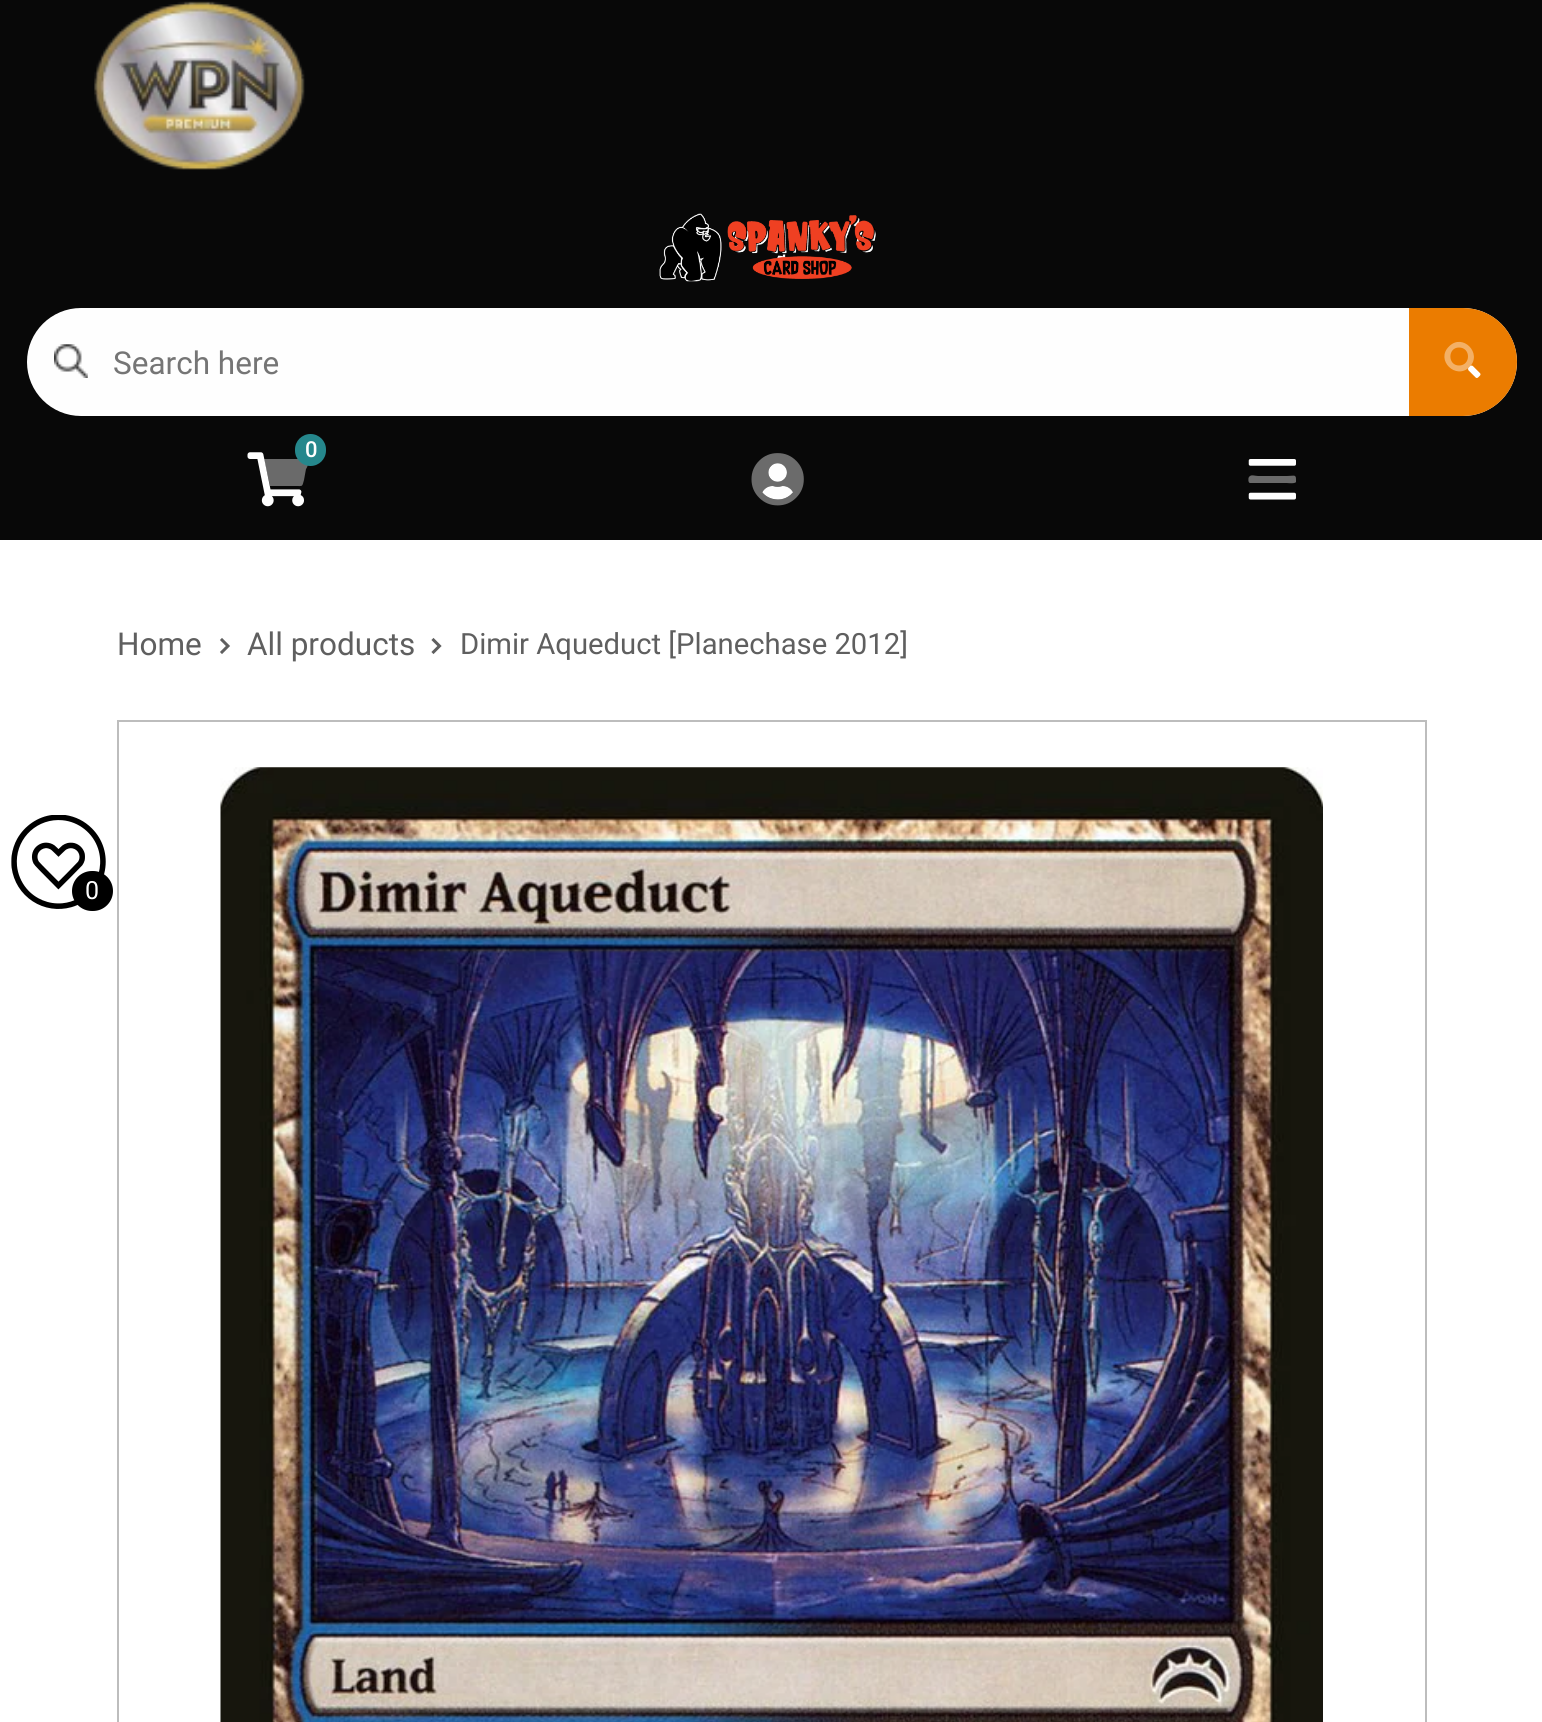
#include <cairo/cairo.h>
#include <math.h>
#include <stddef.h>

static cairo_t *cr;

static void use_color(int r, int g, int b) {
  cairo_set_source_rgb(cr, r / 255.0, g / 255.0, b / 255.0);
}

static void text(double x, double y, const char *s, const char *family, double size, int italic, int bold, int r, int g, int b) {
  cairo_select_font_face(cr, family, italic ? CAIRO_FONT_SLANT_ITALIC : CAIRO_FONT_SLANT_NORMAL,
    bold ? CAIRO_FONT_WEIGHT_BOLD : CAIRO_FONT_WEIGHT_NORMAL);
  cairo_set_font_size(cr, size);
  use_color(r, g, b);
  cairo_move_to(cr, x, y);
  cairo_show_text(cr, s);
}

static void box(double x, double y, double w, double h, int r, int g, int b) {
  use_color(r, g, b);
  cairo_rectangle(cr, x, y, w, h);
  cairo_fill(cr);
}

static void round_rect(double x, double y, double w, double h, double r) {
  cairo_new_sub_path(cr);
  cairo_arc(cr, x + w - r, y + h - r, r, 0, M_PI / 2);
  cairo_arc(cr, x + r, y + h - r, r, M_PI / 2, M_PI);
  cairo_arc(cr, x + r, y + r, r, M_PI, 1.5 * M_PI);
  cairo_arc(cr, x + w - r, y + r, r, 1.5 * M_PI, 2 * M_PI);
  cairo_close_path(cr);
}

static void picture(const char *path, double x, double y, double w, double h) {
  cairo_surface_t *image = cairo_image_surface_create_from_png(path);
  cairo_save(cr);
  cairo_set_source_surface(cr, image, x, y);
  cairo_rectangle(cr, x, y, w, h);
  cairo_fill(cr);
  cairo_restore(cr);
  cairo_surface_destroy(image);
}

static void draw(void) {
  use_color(255, 255, 255);
  cairo_paint(cr);
  box(0, 0, 1542, 540, 8, 8, 8);
  picture("img_01.png", 94, 1, 211, 169);
  picture("img_02.png", 659, 213, 218, 69);
  use_color(254, 254, 254);
  round_rect(27, 308, 1490, 108, 54);
  cairo_fill(cr);
  picture("img_03.png", 54, 344, 34, 34);
  use_color(235, 124, 0);
  cairo_new_path(cr);
  cairo_move_to(cr, 1409, 308);
  cairo_line_to(cr, 1463, 308);
  cairo_curve_to(cr, 1493, 308, 1517, 332, 1517, 362);
  cairo_curve_to(cr, 1517, 392, 1493, 416, 1463, 416);
  cairo_line_to(cr, 1409, 416);
  cairo_close_path(cr);
  cairo_fill(cr);
  picture("img_04.png", 1468, 365, 13, 13);
  cairo_set_source_rgba(cr, 1, 1, 1, 0.4);
  cairo_new_path(cr);
  cairo_move_to(cr, 1459, 347.5);
  cairo_curve_to(cr, 1447.5, 347.5, 1447.5, 365.5, 1459, 365.5);
  cairo_curve_to(cr, 1471, 365.5, 1471, 347.5, 1459, 347.5);
  cairo_close_path(cr);
  cairo_move_to(cr, 1449, 346.5);
  cairo_curve_to(cr, 1462.5, 332.5, 1483, 353.5, 1469.5, 367);
  cairo_curve_to(cr, 1456, 380.5, 1435, 360, 1449, 346.5);
  cairo_close_path(cr);
  cairo_fill(cr);
  picture("img_05.png", 247, 452, 57, 55);
  cairo_set_source_rgba(cr, 0.996, 0.996, 0.996, 0.4);
  cairo_new_path(cr);
  cairo_move_to(cr, 306, 459);
  cairo_curve_to(cr, 311, 459, 307, 468, 306, 469);
  cairo_line_to(cr, 304, 480);
  cairo_curve_to(cr, 302, 487, 303, 486, 296, 486);
  cairo_line_to(cr, 270, 486);
  cairo_line_to(cr, 264, 459);
  cairo_close_path(cr);
  cairo_fill(cr);
  use_color(37, 135, 140);
  round_rect(295, 434, 31, 32, 15.5);
  cairo_fill(cr);
  picture("img_07.png", 762, 463, 31, 37);
  picture("img_06.png", 751, 453, 53, 53);
  picture("img_08.png", 1248, 459, 48, 41);
  use_color(106, 106, 106);
  cairo_new_path(cr);
  cairo_move_to(cr, 1250, 483);
  cairo_curve_to(cr, 1248, 483, 1248, 478, 1249, 477);
  cairo_curve_to(cr, 1251, 474, 1255, 476, 1258, 476);
  cairo_line_to(cr, 1287, 476);
  cairo_curve_to(cr, 1293, 476, 1296, 474, 1296, 479);
  cairo_line_to(cr, 1296, 482);
  cairo_curve_to(cr, 1295, 484, 1287, 483, 1287, 483);
  cairo_close_path(cr);
  cairo_fill(cr);
  cairo_new_path(cr);
  cairo_move_to(cr, 222, 640);
  cairo_line_to(cr, 228, 646);
  cairo_line_to(cr, 222, 652);
  use_color(95, 95, 95);
  cairo_set_line_width(cr, 3);
  cairo_set_line_cap(cr, CAIRO_LINE_CAP_SQUARE);
  cairo_stroke(cr);
  cairo_new_path(cr);
  cairo_move_to(cr, 433.5, 640);
  cairo_line_to(cr, 439.5, 646);
  cairo_line_to(cr, 433.5, 652);
  cairo_stroke(cr);
  cairo_rectangle(cr, 118, 721, 1308, 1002);
  use_color(189, 189, 189);
  cairo_set_line_width(cr, 2);
  cairo_set_line_cap(cr, CAIRO_LINE_CAP_BUTT);
  cairo_stroke(cr);
  picture("img_09.png", 220, 767, 1103, 955);
  picture("img_10.png", 11, 815, 95, 94);
  use_color(0, 0, 0);
  round_rect(72, 871, 41, 40, 20);
  cairo_fill(cr);
  text(113, 374, "Search here", "Roboto", 31.5, 0, 0, 117, 117, 117);
  text(305, 457, "0", "Roboto Medium", 22, 0, 0, 255, 255, 255);
  text(117, 655, "Home", "Roboto", 31.5, 0, 0, 95, 95, 95);
  text(247, 655, "All products", "Roboto", 31.5, 0, 0, 95, 95, 95);
  text(460, 654, "Dimir Aqueduct [Planechase 2012]", "Roboto", 29.25, 0, 0, 95, 95, 95);
  text(85, 899, "0", "Roboto", 25, 0, 0, 255, 255, 255);
}

int main(void) {
  cairo_surface_t *surface = cairo_image_surface_create(CAIRO_FORMAT_RGB24, 1542, 1722);
  cr = cairo_create(surface);
  cairo_font_options_t *options = cairo_font_options_create();
  cairo_font_options_set_hint_metrics(options, CAIRO_HINT_METRICS_OFF);
  cairo_font_options_set_hint_style(options, CAIRO_HINT_STYLE_NONE);
  cairo_set_font_options(cr, options);
  cairo_set_miter_limit(cr, 4);
  draw();
  cairo_surface_write_to_png(surface, "out.png");
  cairo_font_options_destroy(options);
  cairo_destroy(cr);
  cairo_surface_destroy(surface);
  return 0;
}
